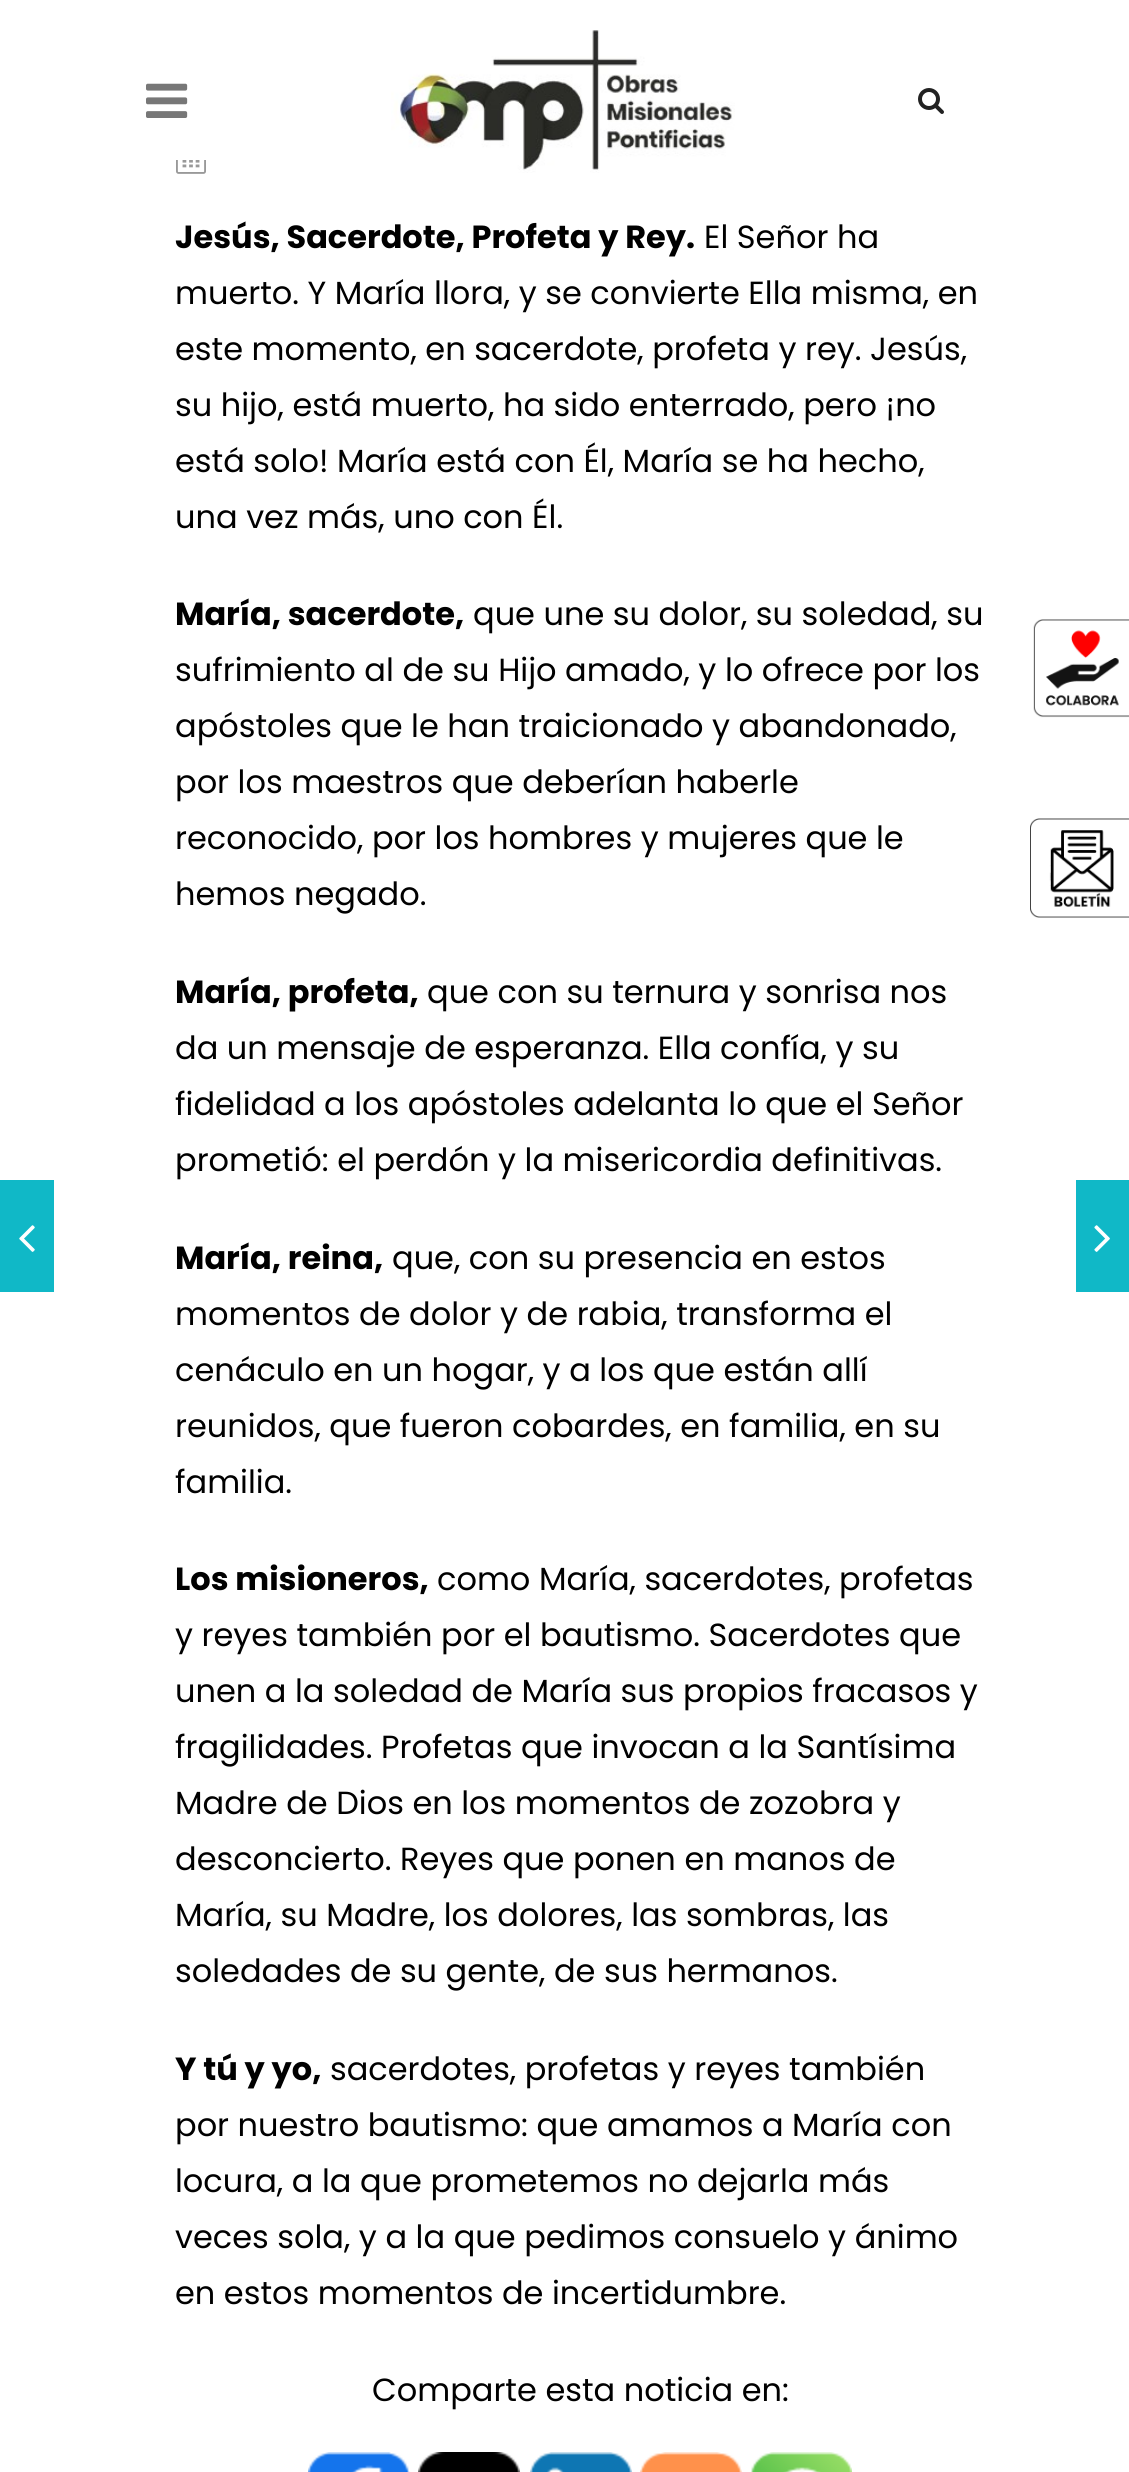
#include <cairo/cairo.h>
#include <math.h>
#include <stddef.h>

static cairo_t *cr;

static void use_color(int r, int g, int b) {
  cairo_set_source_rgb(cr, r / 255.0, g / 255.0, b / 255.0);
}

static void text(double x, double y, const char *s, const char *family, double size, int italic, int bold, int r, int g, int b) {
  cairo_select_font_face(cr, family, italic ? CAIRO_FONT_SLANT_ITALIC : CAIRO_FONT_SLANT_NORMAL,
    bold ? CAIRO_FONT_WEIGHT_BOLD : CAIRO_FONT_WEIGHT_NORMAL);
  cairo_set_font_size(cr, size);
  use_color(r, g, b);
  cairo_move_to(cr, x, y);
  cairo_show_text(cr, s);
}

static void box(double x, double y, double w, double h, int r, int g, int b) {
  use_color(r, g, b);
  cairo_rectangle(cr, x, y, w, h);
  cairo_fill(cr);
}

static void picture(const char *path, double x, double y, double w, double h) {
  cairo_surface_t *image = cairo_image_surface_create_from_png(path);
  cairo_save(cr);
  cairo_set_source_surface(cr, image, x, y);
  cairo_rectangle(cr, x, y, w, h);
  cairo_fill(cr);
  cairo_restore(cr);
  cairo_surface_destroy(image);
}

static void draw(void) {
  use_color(255, 255, 255);
  cairo_paint(cr);
  picture("img_01.png", 146, 83, 42, 35);
  picture("img_02.png", 391, 30, 344, 143);
  picture("img_03.png", 918, 88, 26, 26);
  picture("img_04.png", 176, 160, 30, 14);
  picture("img_05.png", 308, 2452, 102, 20);
  picture("img_06.png", 418, 2452, 102, 20);
  picture("img_07.png", 530, 2452, 102, 20);
  picture("img_08.png", 640, 2452, 102, 20);
  picture("img_09.png", 751, 2452, 101, 20);
  box(0, 1180, 54, 112, 16, 184, 199);
  picture("img_10.png", 19, 1225, 16, 27);
  box(1076, 1180, 53, 112, 16, 184, 199);
  picture("img_11.png", 1094, 1225, 16, 27);
  picture("img_12.png", 1033, 619, 96, 99);
  picture("img_13.png", 1030, 818, 99, 100);
  text(175, 248, "Jesús, Sacerdote, Profeta y Rey.", "Poppins", 32, 0, 1, 0, 0, 0);
  text(704, 248, "El Señor ha", "Poppins", 32, 0, 0, 0, 0, 0);
  text(175, 304, "muerto. Y María llora, y se convierte Ella misma, en", "Poppins", 32, 0, 0, 0, 0, 0);
  text(175, 360, "este momento, en sacerdote, profeta y rey. Jesús,", "Poppins", 32, 0, 0, 0, 0, 0);
  text(175, 416, "su hijo, está muerto, ha sido enterrado, pero ¡no", "Poppins", 32, 0, 0, 0, 0, 0);
  text(175, 472, "está solo! María está con Él, María se ha hecho,", "Poppins", 32, 0, 0, 0, 0, 0);
  text(175, 528, "una vez más, uno con Él.", "Poppins", 32, 0, 0, 0, 0, 0);
  text(175, 625, "María, sacerdote,", "Poppins", 32, 0, 1, 0, 0, 0);
  text(473, 625, "que une su dolor, su soledad, su", "Poppins", 32, 0, 0, 0, 0, 0);
  text(175, 681, "sufrimiento al de su Hijo amado, y lo ofrece por los", "Poppins", 32, 0, 0, 0, 0, 0);
  text(175, 737, "apóstoles que le han traicionado y abandonado,", "Poppins", 32, 0, 0, 0, 0, 0);
  text(175, 793, "por los maestros que deberían haberle", "Poppins", 32, 0, 0, 0, 0, 0);
  text(175, 849, "reconocido, por los hombres y mujeres que le", "Poppins", 32, 0, 0, 0, 0, 0);
  text(175, 905, "hemos negado.", "Poppins", 32, 0, 0, 0, 0, 0);
  text(175, 1003, "María, profeta,", "Poppins", 32, 0, 1, 0, 0, 0);
  text(427, 1003, "que con su ternura y sonrisa nos", "Poppins", 32, 0, 0, 0, 0, 0);
  text(175, 1059, "da un mensaje de esperanza. Ella confía, y su", "Poppins", 32, 0, 0, 0, 0, 0);
  text(175, 1115, "fidelidad a los apóstoles adelanta lo que el Señor", "Poppins", 32, 0, 0, 0, 0, 0);
  text(175, 1171, "prometió: el perdón y la misericordia definitivas.", "Poppins", 32, 0, 0, 0, 0, 0);
  text(175, 1269, "María, reina,", "Poppins", 32, 0, 1, 0, 0, 0);
  text(392, 1269, "que, con su presencia en estos", "Poppins", 32, 0, 0, 0, 0, 0);
  text(175, 1325, "momentos de dolor y de rabia, transforma el", "Poppins", 32, 0, 0, 0, 0, 0);
  text(175, 1381, "cenáculo en un hogar, y a los que están allí", "Poppins", 32, 0, 0, 0, 0, 0);
  text(175, 1437, "reunidos, que fueron cobardes, en familia, en su", "Poppins", 32, 0, 0, 0, 0, 0);
  text(175, 1493, "familia.", "Poppins", 32, 0, 0, 0, 0, 0);
  text(175, 1590, "Los misioneros,", "Poppins", 32, 0, 1, 0, 0, 0);
  text(437, 1590, "como María, sacerdotes, profetas", "Poppins", 32, 0, 0, 0, 0, 0);
  text(175, 1646, "y reyes también por el bautismo. Sacerdotes que", "Poppins", 32, 0, 0, 0, 0, 0);
  text(175, 1702, "unen a la soledad de María sus propios fracasos y", "Poppins", 32, 0, 0, 0, 0, 0);
  text(175, 1758, "fragilidades. Profetas que invocan a la Santísima", "Poppins", 32, 0, 0, 0, 0, 0);
  text(175, 1814, "Madre de Dios en los momentos de zozobra y", "Poppins", 32, 0, 0, 0, 0, 0);
  text(175, 1870, "desconcierto. Reyes que ponen en manos de", "Poppins", 32, 0, 0, 0, 0, 0);
  text(175, 1926, "María, su Madre, los dolores, las sombras, las", "Poppins", 32, 0, 0, 0, 0, 0);
  text(175, 1982, "soledades de su gente, de sus hermanos.", "Poppins", 32, 0, 0, 0, 0, 0);
  text(175, 2080, "Y tú y yo,", "Poppins", 32, 0, 1, 0, 0, 0);
  text(330, 2080, "sacerdotes, profetas y reyes también", "Poppins", 32, 0, 0, 0, 0, 0);
  text(175, 2136, "por nuestro bautismo: que amamos a María con", "Poppins", 32, 0, 0, 0, 0, 0);
  text(175, 2192, "locura, a la que prometemos no dejarla más", "Poppins", 32, 0, 0, 0, 0, 0);
  text(175, 2248, "veces sola, y a la que pedimos consuelo y ánimo", "Poppins", 32, 0, 0, 0, 0, 0);
  text(175, 2304, "en estos momentos de incertidumbre.", "Poppins", 32, 0, 0, 0, 0, 0);
  text(372, 2401, "Comparte esta noticia en:", "Poppins", 32, 0, 0, 0, 0, 0);
}

int main(void) {
  cairo_surface_t *surface = cairo_image_surface_create(CAIRO_FORMAT_RGB24, 1129, 2472);
  cr = cairo_create(surface);
  cairo_font_options_t *options = cairo_font_options_create();
  cairo_font_options_set_hint_metrics(options, CAIRO_HINT_METRICS_OFF);
  cairo_font_options_set_hint_style(options, CAIRO_HINT_STYLE_NONE);
  cairo_set_font_options(cr, options);
  cairo_set_miter_limit(cr, 4);
  draw();
  cairo_surface_write_to_png(surface, "out.png");
  cairo_font_options_destroy(options);
  cairo_destroy(cr);
  cairo_surface_destroy(surface);
  return 0;
}
